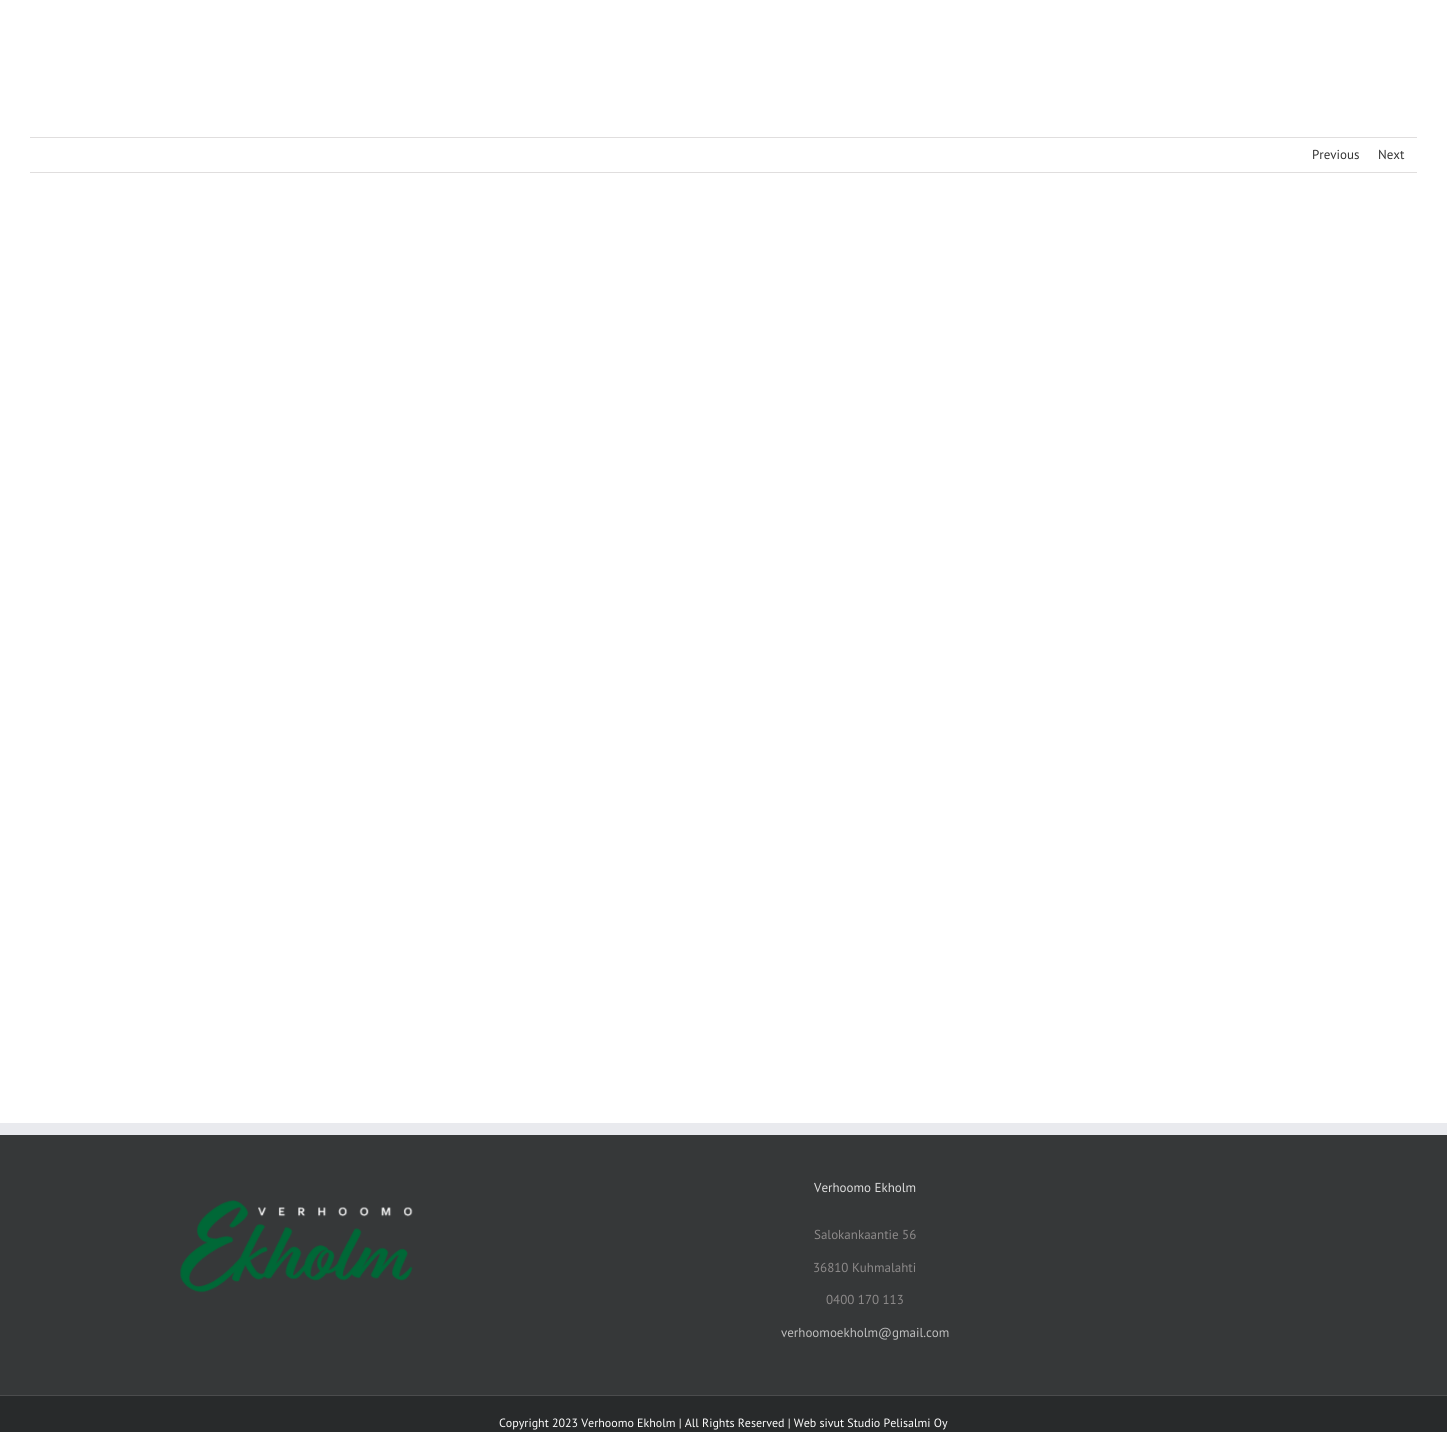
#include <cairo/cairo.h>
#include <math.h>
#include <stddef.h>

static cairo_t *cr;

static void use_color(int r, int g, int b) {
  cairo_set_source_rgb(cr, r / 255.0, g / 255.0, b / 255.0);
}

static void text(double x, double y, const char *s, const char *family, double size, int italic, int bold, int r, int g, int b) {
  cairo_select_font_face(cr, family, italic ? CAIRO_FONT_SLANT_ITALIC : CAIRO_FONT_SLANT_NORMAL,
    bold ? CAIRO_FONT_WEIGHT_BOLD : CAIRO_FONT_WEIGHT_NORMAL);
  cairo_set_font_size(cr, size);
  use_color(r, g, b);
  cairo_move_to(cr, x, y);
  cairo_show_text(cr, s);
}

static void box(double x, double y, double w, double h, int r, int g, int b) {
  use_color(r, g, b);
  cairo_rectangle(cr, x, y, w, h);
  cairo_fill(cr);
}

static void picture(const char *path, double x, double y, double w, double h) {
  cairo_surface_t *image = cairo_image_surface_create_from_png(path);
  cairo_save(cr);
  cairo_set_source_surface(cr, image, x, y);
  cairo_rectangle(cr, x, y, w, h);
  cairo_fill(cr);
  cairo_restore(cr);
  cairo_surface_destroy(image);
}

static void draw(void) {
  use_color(255, 255, 255);
  cairo_paint(cr);
  box(30, 137, 1387, 1, 224, 222, 222);
  box(30, 172, 1387, 1, 224, 222, 222);
  box(0, 1135, 1447, 260, 54, 56, 57);
  box(0, 1123, 1447, 12, 233, 234, 238);
  picture("img_01.png", 180, 1200, 233, 93);
  box(0, 1396, 1447, 36, 40, 42, 43);
  box(0, 1395, 1447, 1, 75, 76, 77);
  text(1312, 159, "Previous", "PT Sans", 13, 0, 0, 51, 51, 51);
  text(1378, 159, "Next", "PT Sans", 13, 0, 0, 51, 51, 51);
  text(814, 1192, "Verhoomo Ekholm", "PT Sans", 13, 0, 0, 221, 221, 221);
  text(814, 1239, "Salokankaantie 56", "PT Sans", 13, 0, 0, 140, 137, 137);
  text(813, 1272, "36810 Kuhmalahti", "PT Sans", 13, 0, 0, 140, 137, 137);
  text(826, 1304, "0400 170 113", "PT Sans", 13, 0, 0, 140, 137, 137);
  text(781, 1337, "verhoomoekholm@gmail.com", "PT Sans", 13, 0, 0, 191, 191, 191);
  text(499, 1427, "Copyright 2023 Verhoomo Ekholm | All Rights Reserved | Web sivut Studio Pelisalmi Oy", "PT Sans", 12, 0, 0, 255, 255, 255);
}

int main(void) {
  cairo_surface_t *surface = cairo_image_surface_create(CAIRO_FORMAT_RGB24, 1447, 1432);
  cr = cairo_create(surface);
  cairo_font_options_t *options = cairo_font_options_create();
  cairo_font_options_set_hint_metrics(options, CAIRO_HINT_METRICS_OFF);
  cairo_font_options_set_hint_style(options, CAIRO_HINT_STYLE_NONE);
  cairo_set_font_options(cr, options);
  cairo_set_miter_limit(cr, 4);
  draw();
  cairo_surface_write_to_png(surface, "out.png");
  cairo_font_options_destroy(options);
  cairo_destroy(cr);
  cairo_surface_destroy(surface);
  return 0;
}
